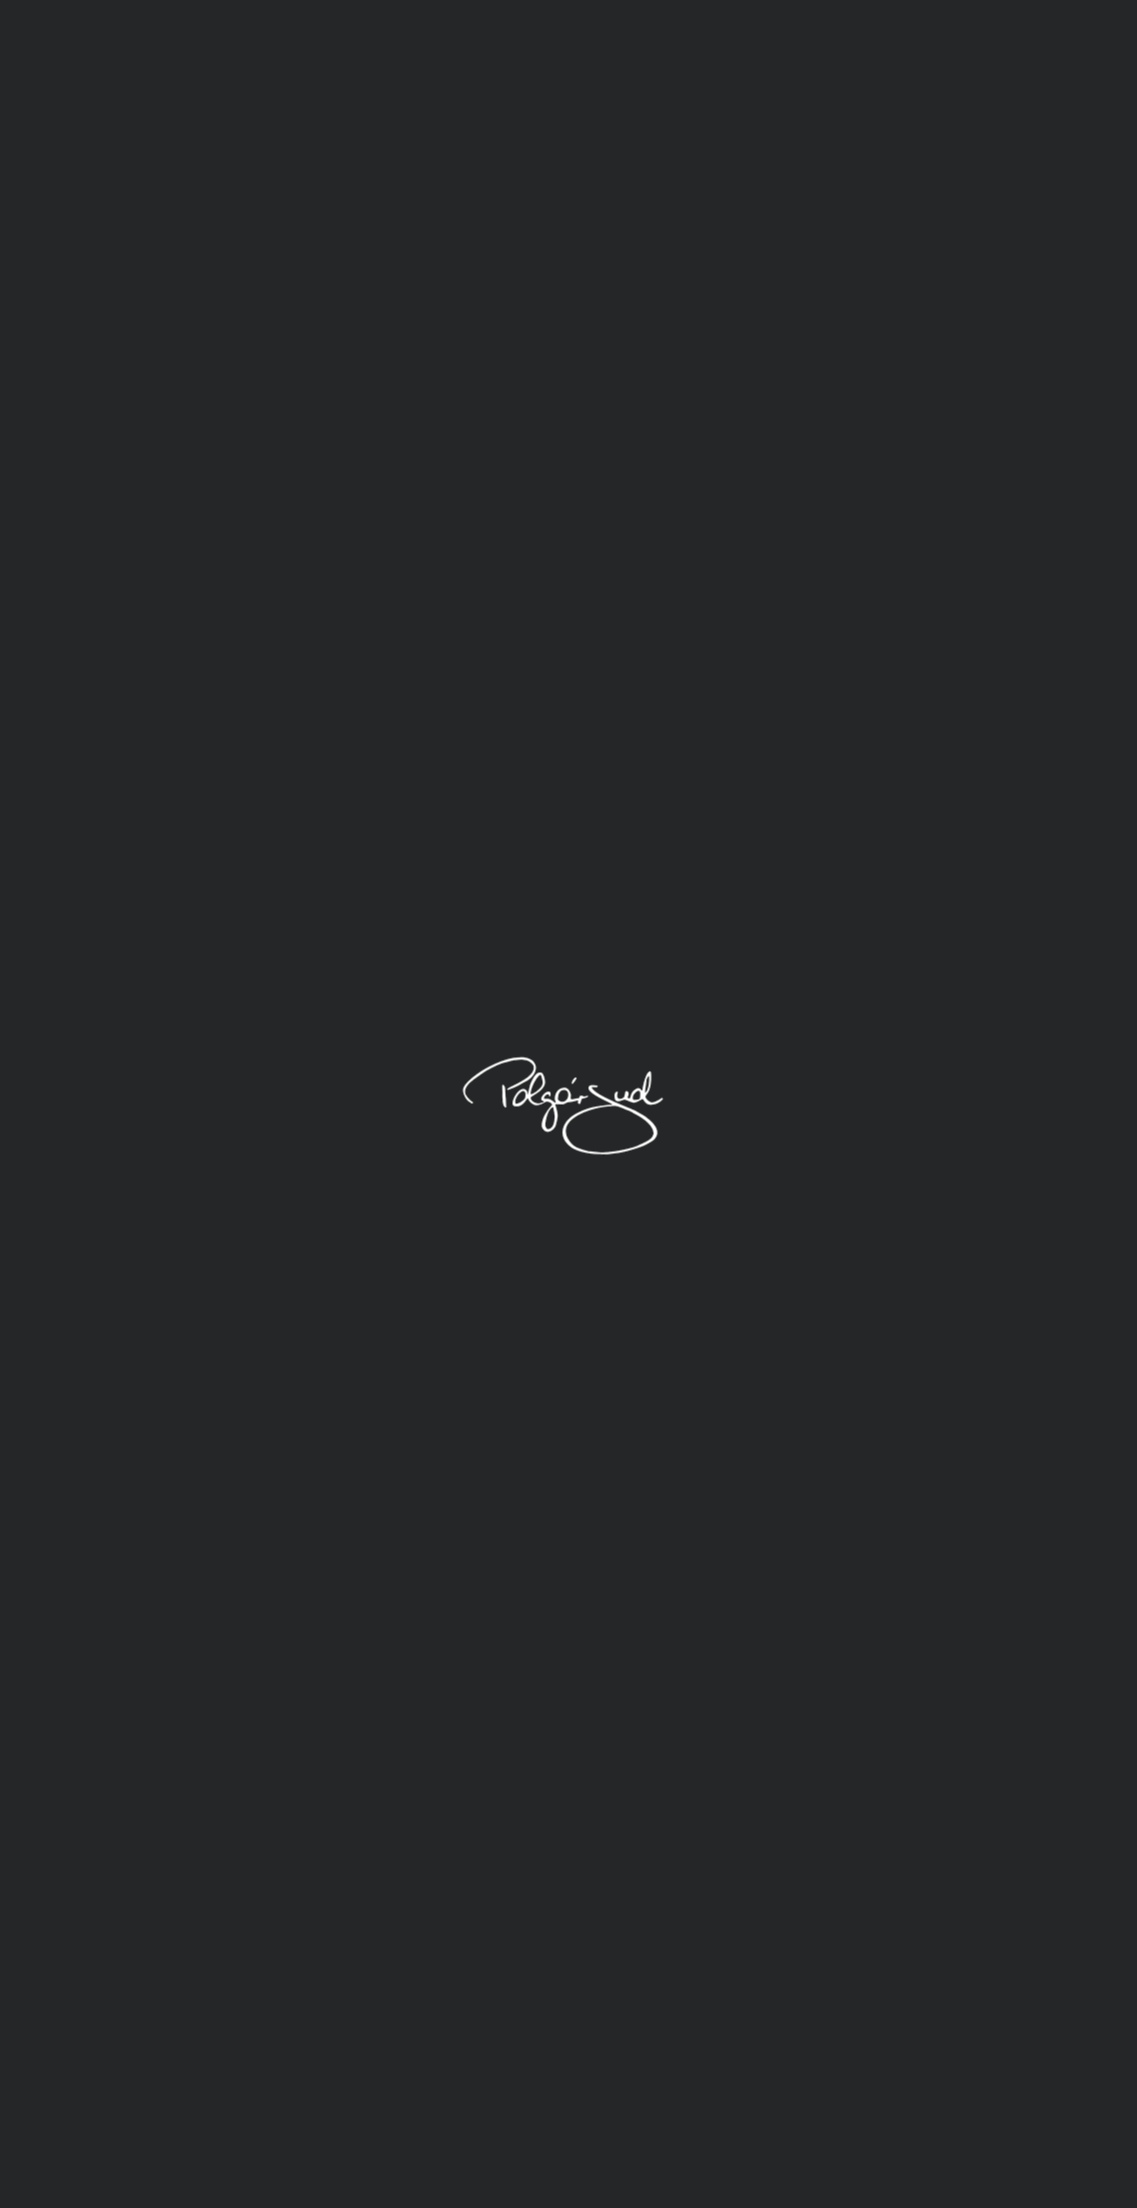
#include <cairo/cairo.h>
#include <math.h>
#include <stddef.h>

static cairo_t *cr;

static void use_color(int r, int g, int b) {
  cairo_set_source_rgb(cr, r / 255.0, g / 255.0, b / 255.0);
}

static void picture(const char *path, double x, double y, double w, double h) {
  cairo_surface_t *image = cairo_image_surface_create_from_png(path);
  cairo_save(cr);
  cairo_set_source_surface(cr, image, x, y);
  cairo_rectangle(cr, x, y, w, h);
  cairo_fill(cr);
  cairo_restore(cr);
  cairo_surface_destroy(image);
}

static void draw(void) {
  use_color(36, 38, 39);
  cairo_paint(cr);
  picture("img_01.png", 462, 1056, 202, 100);
}

int main(void) {
  cairo_surface_t *surface = cairo_image_surface_create(CAIRO_FORMAT_RGB24, 1137, 2208);
  cr = cairo_create(surface);
  cairo_font_options_t *options = cairo_font_options_create();
  cairo_font_options_set_hint_metrics(options, CAIRO_HINT_METRICS_OFF);
  cairo_font_options_set_hint_style(options, CAIRO_HINT_STYLE_NONE);
  cairo_set_font_options(cr, options);
  cairo_set_miter_limit(cr, 4);
  draw();
  cairo_surface_write_to_png(surface, "out.png");
  cairo_font_options_destroy(options);
  cairo_destroy(cr);
  cairo_surface_destroy(surface);
  return 0;
}
